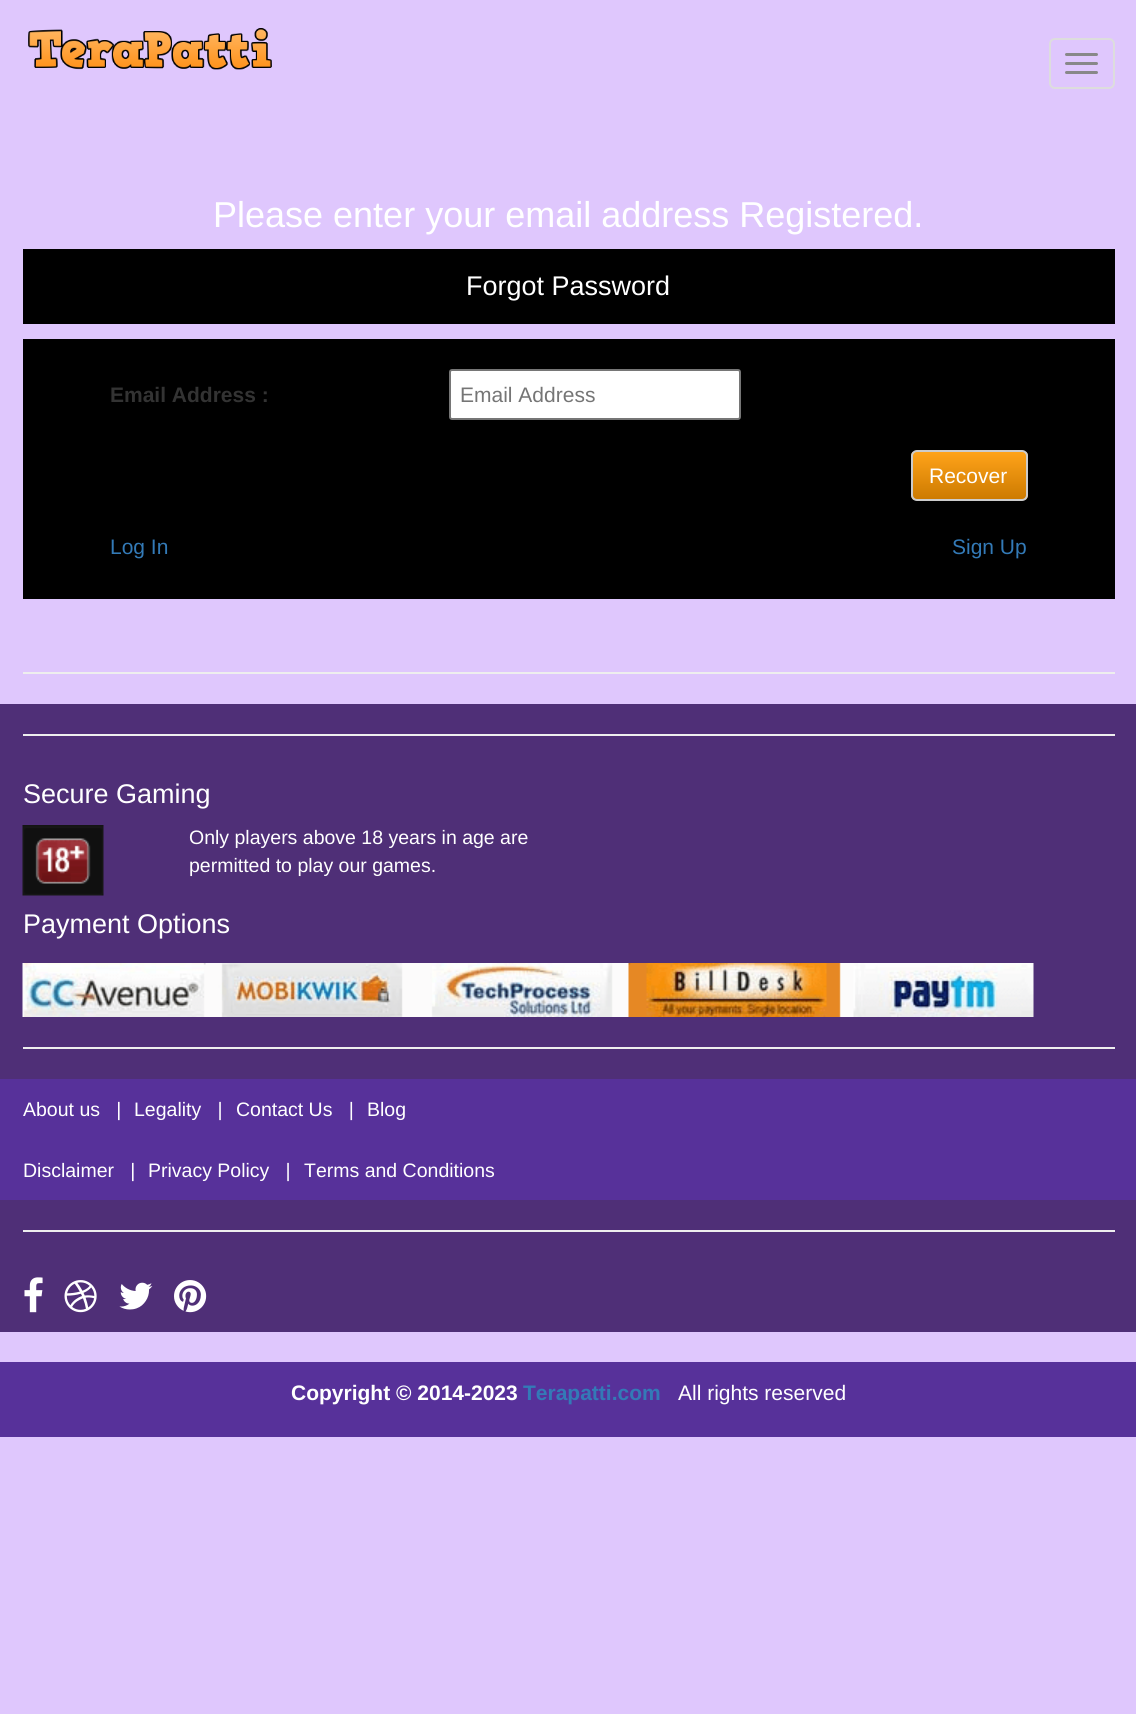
#include <cairo/cairo.h>
#include <math.h>
#include <stddef.h>

static cairo_t *cr;

static void use_color(int r, int g, int b) {
  cairo_set_source_rgb(cr, r / 255.0, g / 255.0, b / 255.0);
}

static void text(double x, double y, const char *s, const char *family, double size, int italic, int bold, int r, int g, int b) {
  cairo_select_font_face(cr, family, italic ? CAIRO_FONT_SLANT_ITALIC : CAIRO_FONT_SLANT_NORMAL,
    bold ? CAIRO_FONT_WEIGHT_BOLD : CAIRO_FONT_WEIGHT_NORMAL);
  cairo_set_font_size(cr, size);
  use_color(r, g, b);
  cairo_move_to(cr, x, y);
  cairo_show_text(cr, s);
}

static void box(double x, double y, double w, double h, int r, int g, int b) {
  use_color(r, g, b);
  cairo_rectangle(cr, x, y, w, h);
  cairo_fill(cr);
}

static void round_rect(double x, double y, double w, double h, double r) {
  cairo_new_sub_path(cr);
  cairo_arc(cr, x + w - r, y + h - r, r, 0, M_PI / 2);
  cairo_arc(cr, x + r, y + h - r, r, M_PI / 2, M_PI);
  cairo_arc(cr, x + r, y + r, r, M_PI, 1.5 * M_PI);
  cairo_arc(cr, x + w - r, y + r, r, 1.5 * M_PI, 2 * M_PI);
  cairo_close_path(cr);
}

static void picture(const char *path, double x, double y, double w, double h) {
  cairo_surface_t *image = cairo_image_surface_create_from_png(path);
  cairo_save(cr);
  cairo_set_source_surface(cr, image, x, y);
  cairo_rectangle(cr, x, y, w, h);
  cairo_fill(cr);
  cairo_restore(cr);
  cairo_surface_destroy(image);
}

static void draw(void) {
  cairo_pattern_t *gradient;
  use_color(223, 199, 253);
  cairo_paint(cr);
  picture("img_01.png", 28, 28, 244, 42);
  round_rect(1050, 39, 64, 49, 5);
  use_color(221, 221, 221);
  cairo_stroke(cr);
  use_color(136, 136, 136);
  round_rect(1065, 53, 33, 3, 1.5);
  cairo_fill(cr);
  round_rect(1065, 62, 33, 3, 1.5);
  cairo_fill(cr);
  round_rect(1065, 71, 33, 3, 1.5);
  cairo_fill(cr);
  box(23, 249, 1092, 75, 0, 0, 0);
  box(23, 339, 1092, 260, 0, 0, 0);
  use_color(255, 255, 255);
  round_rect(450, 370, 290, 49, 2);
  cairo_fill_preserve(cr);
  use_color(118, 118, 118);
  cairo_stroke(cr);
  cairo_save(cr);
  round_rect(911, 450, 117, 51, 6);
  cairo_clip(cr);
  gradient = cairo_pattern_create_linear(969, 452, 969, 500);
  cairo_pattern_add_color_stop_rgba(gradient, 0, 1, 0.639, 0.102, 1);
  cairo_pattern_add_color_stop_rgba(gradient, 1, 0.8, 0.478, 0, 1);
  cairo_set_source(cr, gradient);
  cairo_pattern_destroy(gradient);
  cairo_rectangle(cr, 911, 452, 117, 48);
  cairo_fill(cr);
  cairo_restore(cr);
  round_rect(912, 451, 115, 49, 5);
  use_color(204, 204, 204);
  cairo_stroke(cr);
  box(23, 672, 1092, 2, 238, 238, 238);
  box(0, 704, 1136, 375, 79, 47, 119);
  box(23, 734, 1092, 2, 238, 238, 238);
  picture("img_02.png", 22, 825, 82, 71);
  picture("img_03.png", 22, 963, 1012, 54);
  box(23, 1047, 1092, 2, 238, 238, 238);
  box(0, 1079, 1136, 121, 87, 49, 154);
  box(0, 1200, 1136, 132, 79, 47, 119);
  box(23, 1230, 1092, 2, 238, 238, 238);
  picture("img_04.png", 24, 1277, 19, 36);
  picture("img_05.png", 64, 1280, 33, 33);
  picture("img_06.png", 119, 1282, 34, 28);
  picture("img_07.png", 174, 1280, 33, 33);
  box(0, 1362, 1136, 75, 87, 49, 154);
  text(213, 227, "Please enter your email address Registered.", "Liberation Sans", 36, 0, 0, 255, 255, 255);
  text(466, 295, "Forgot Password", "Liberation Sans", 27, 0, 0, 255, 255, 255);
  text(110, 402, "Email Address :", "Liberation Sans", 21, 0, 1, 51, 51, 51);
  text(460, 402, "Email Address", "Liberation Sans", 21, 0, 0, 117, 117, 117);
  text(929, 483, "Recover", "Liberation Sans", 21, 0, 0, 255, 255, 255);
  text(110, 554, "Log In", "Liberation Sans", 21, 0, 0, 51, 122, 183);
  text(952, 554, "Sign Up", "Liberation Sans", 21, 0, 0, 51, 122, 183);
  text(23, 803, "Secure Gaming", "Liberation Sans", 27, 0, 0, 255, 255, 255);
  text(189, 844, "Only players above 18 years in age are", "Liberation Sans", 19.5, 0, 0, 255, 255, 255);
  text(189, 872, "permitted to play our games.", "Liberation Sans", 19.5, 0, 0, 255, 255, 255);
  text(23, 933, "Payment Options", "Liberation Sans", 27, 0, 0, 255, 255, 255);
  text(23, 1116, "About us   |", "Liberation Sans", 19.5, 0, 0, 255, 255, 255);
  text(134, 1116, "Legality   |", "Liberation Sans", 19.5, 0, 0, 255, 255, 255);
  text(236, 1116, "Contact Us   |", "Liberation Sans", 19.5, 0, 0, 255, 255, 255);
  text(367, 1116, "Blog", "Liberation Sans", 19.5, 0, 0, 255, 255, 255);
  text(23, 1177, "Disclaimer   |", "Liberation Sans", 19.5, 0, 0, 255, 255, 255);
  text(148, 1177, "Privacy Policy   |", "Liberation Sans", 19.5, 0, 0, 255, 255, 255);
  text(304, 1177, "Terms and Conditions", "Liberation Sans", 19.5, 0, 0, 255, 255, 255);
  text(291, 1400, "Copyright © 2014-2023", "Liberation Sans", 21, 0, 1, 255, 255, 255);
  text(523, 1400, "Terapatti.com", "Liberation Sans", 21, 0, 1, 51, 122, 183);
  text(678, 1400, "All rights reserved", "Liberation Sans", 21, 0, 0, 255, 255, 255);
}

int main(void) {
  cairo_surface_t *surface = cairo_image_surface_create(CAIRO_FORMAT_RGB24, 1136, 1714);
  cr = cairo_create(surface);
  cairo_font_options_t *options = cairo_font_options_create();
  cairo_font_options_set_hint_metrics(options, CAIRO_HINT_METRICS_OFF);
  cairo_font_options_set_hint_style(options, CAIRO_HINT_STYLE_NONE);
  cairo_set_font_options(cr, options);
  cairo_set_miter_limit(cr, 4);
  draw();
  cairo_surface_write_to_png(surface, "out.png");
  cairo_font_options_destroy(options);
  cairo_destroy(cr);
  cairo_surface_destroy(surface);
  return 0;
}
